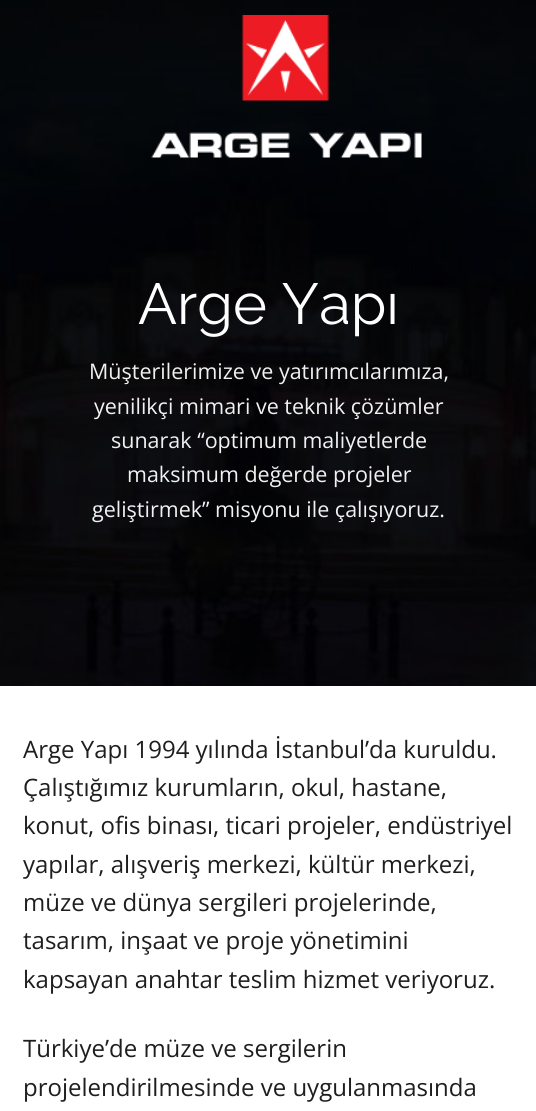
#include <cairo/cairo.h>
#include <math.h>
#include <stddef.h>

static cairo_t *cr;

static void use_color(int r, int g, int b) {
  cairo_set_source_rgb(cr, r / 255.0, g / 255.0, b / 255.0);
}

static void text(double x, double y, const char *s, const char *family, double size, int italic, int bold, int r, int g, int b) {
  cairo_select_font_face(cr, family, italic ? CAIRO_FONT_SLANT_ITALIC : CAIRO_FONT_SLANT_NORMAL,
    bold ? CAIRO_FONT_WEIGHT_BOLD : CAIRO_FONT_WEIGHT_NORMAL);
  cairo_set_font_size(cr, size);
  use_color(r, g, b);
  cairo_move_to(cr, x, y);
  cairo_show_text(cr, s);
}

static void picture(const char *path, double x, double y, double w, double h) {
  cairo_surface_t *image = cairo_image_surface_create_from_png(path);
  cairo_save(cr);
  cairo_set_source_surface(cr, image, x, y);
  cairo_rectangle(cr, x, y, w, h);
  cairo_fill(cr);
  cairo_restore(cr);
  cairo_surface_destroy(image);
}

static void draw(void) {
  use_color(255, 255, 255);
  cairo_paint(cr);
  picture("img_02.png", 0, 0, 536, 686);
  picture("img_01.png", 151, 15, 271, 143);
  text(138, 324, "Arge Yapı", "Raleway Thin", 57.75, 0, 0, 255, 255, 255);
  text(89, 379, "Müşterilerimize ve yatırımcılarımıza,", "Open Sans", 21.5, 0, 0, 241, 241, 241);
  text(94, 414, "yenilikçi mimari ve teknik çözümler", "Open Sans", 21.5, 0, 0, 241, 241, 241);
  text(111, 448, "sunarak “optimum maliyetlerde", "Open Sans", 21.5, 0, 0, 241, 241, 241);
  text(127, 482, "maksimum değerde projeler", "Open Sans", 21.5, 0, 0, 241, 241, 241);
  text(92, 517, "geliştirmek” misyonu ile çalışıyoruz.", "Open Sans", 21.5, 0, 0, 241, 241, 241);
  text(23, 758, "Arge Yapı 1994 yılında İstanbul’da kuruldu.", "Open Sans", 24, 0, 0, 30, 30, 30);
  text(23, 796, "Çalıştığımız kurumların, okul, hastane,", "Open Sans", 24, 0, 0, 30, 30, 30);
  text(23, 834, "konut, ofis binası, ticari projeler, endüstriyel", "Open Sans", 24, 0, 0, 30, 30, 30);
  text(23, 873, "yapılar, alışveriş merkezi, kültür merkezi,", "Open Sans", 24, 0, 0, 30, 30, 30);
  text(23, 911, "müze ve dünya sergileri projelerinde,", "Open Sans", 24, 0, 0, 30, 30, 30);
  text(23, 949, "tasarım, inşaat ve proje yönetimini", "Open Sans", 24, 0, 0, 30, 30, 30);
  text(23, 988, "kapsayan anahtar teslim hizmet veriyoruz.", "Open Sans", 24, 0, 0, 30, 30, 30);
  text(23, 1057, "Türkiye’de müze ve sergilerin", "Open Sans", 24, 0, 0, 30, 30, 30);
  text(23, 1096, "projelendirilmesinde ve uygulanmasında", "Open Sans", 24, 0, 0, 30, 30, 30);
}

int main(void) {
  cairo_surface_t *surface = cairo_image_surface_create(CAIRO_FORMAT_RGB24, 536, 1111);
  cr = cairo_create(surface);
  cairo_font_options_t *options = cairo_font_options_create();
  cairo_font_options_set_hint_metrics(options, CAIRO_HINT_METRICS_OFF);
  cairo_font_options_set_hint_style(options, CAIRO_HINT_STYLE_NONE);
  cairo_set_font_options(cr, options);
  cairo_set_miter_limit(cr, 4);
  draw();
  cairo_surface_write_to_png(surface, "out.png");
  cairo_font_options_destroy(options);
  cairo_destroy(cr);
  cairo_surface_destroy(surface);
  return 0;
}
